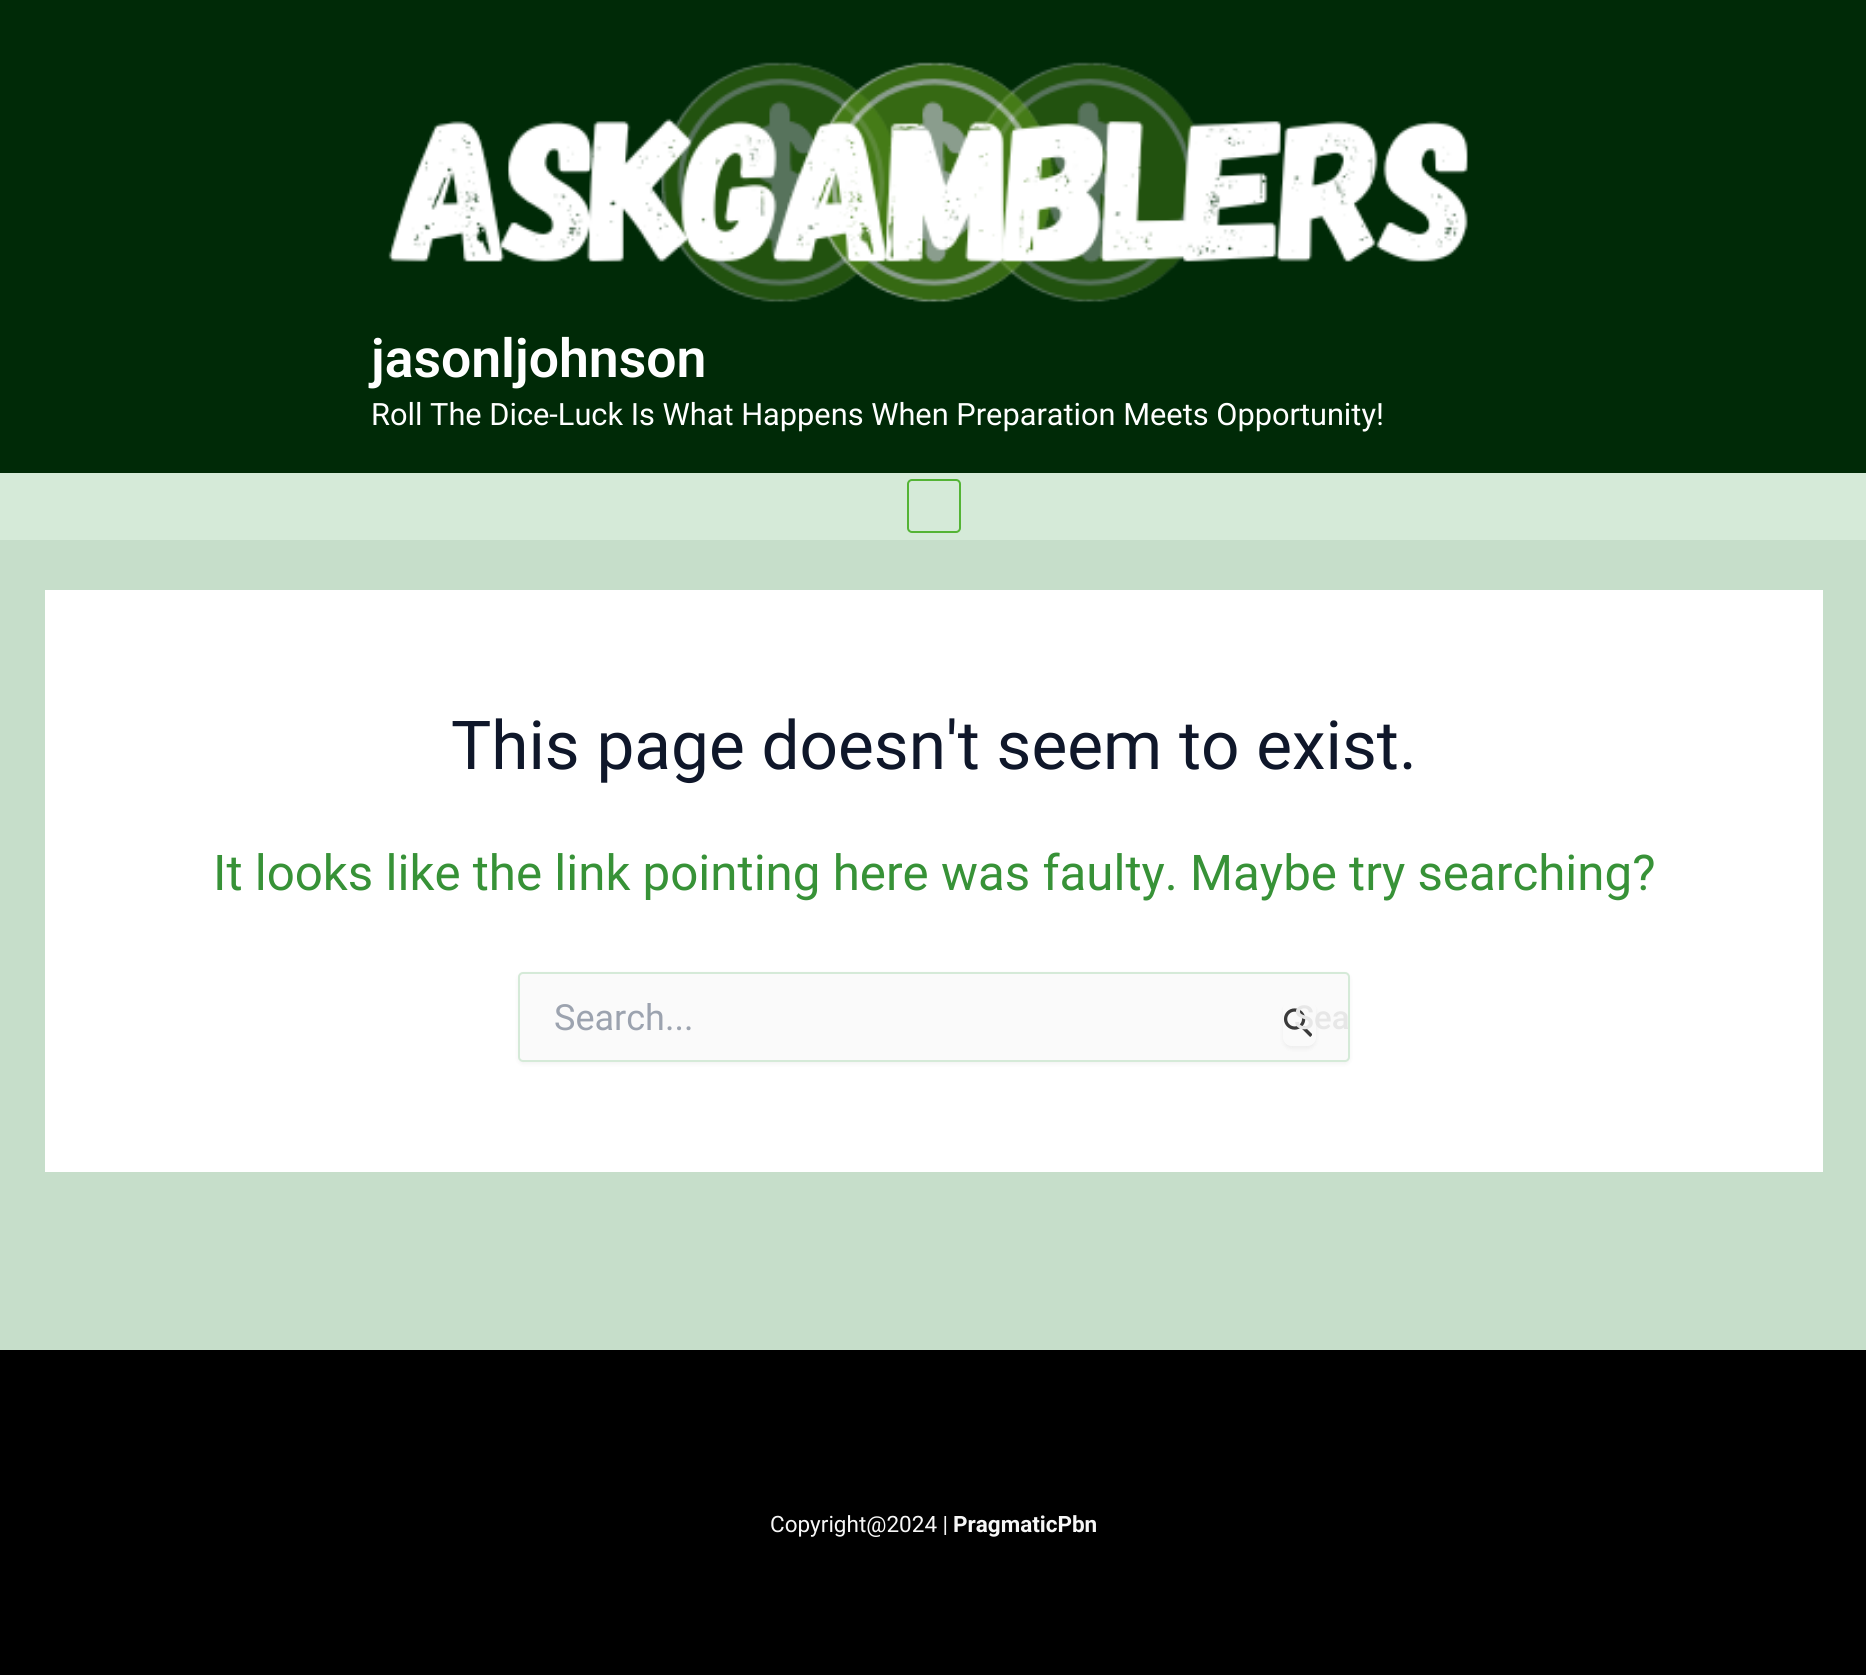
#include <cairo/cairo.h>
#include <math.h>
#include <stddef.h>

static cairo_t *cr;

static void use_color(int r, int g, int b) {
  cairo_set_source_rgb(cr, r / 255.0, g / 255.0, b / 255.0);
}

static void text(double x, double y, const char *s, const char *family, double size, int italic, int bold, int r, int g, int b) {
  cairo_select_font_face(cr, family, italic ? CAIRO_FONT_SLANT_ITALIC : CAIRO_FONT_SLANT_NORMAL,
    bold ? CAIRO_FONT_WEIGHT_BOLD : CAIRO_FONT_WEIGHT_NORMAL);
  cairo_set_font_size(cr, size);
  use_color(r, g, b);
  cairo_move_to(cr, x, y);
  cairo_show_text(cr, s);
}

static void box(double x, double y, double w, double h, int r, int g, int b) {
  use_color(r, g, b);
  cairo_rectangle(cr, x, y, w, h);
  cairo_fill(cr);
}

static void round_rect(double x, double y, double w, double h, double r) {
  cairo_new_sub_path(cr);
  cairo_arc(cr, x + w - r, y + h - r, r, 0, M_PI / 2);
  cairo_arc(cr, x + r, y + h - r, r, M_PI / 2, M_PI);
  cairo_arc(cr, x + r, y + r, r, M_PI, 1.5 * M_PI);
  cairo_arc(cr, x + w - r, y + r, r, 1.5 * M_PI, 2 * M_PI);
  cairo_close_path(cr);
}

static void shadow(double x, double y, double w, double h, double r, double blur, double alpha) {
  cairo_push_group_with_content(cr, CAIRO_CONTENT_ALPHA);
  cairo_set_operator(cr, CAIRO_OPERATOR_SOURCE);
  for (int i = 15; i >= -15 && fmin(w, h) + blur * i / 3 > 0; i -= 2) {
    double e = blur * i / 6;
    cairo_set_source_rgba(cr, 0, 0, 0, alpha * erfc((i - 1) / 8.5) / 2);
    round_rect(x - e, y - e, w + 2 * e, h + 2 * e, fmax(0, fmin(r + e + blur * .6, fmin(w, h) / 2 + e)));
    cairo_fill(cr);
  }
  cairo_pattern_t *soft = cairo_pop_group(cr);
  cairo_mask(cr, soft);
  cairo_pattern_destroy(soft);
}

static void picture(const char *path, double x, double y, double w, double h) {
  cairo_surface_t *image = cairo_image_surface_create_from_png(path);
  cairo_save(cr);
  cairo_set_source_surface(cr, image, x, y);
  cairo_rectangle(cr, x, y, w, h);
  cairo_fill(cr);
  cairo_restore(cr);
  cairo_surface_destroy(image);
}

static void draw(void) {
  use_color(198, 222, 202);
  cairo_paint(cr);
  box(0, 0, 1866, 473, 0, 42, 7);
  picture("img_01.png", 388, 62, 1080, 241);
  box(0, 473, 1866, 67, 213, 234, 216);
  round_rect(908, 480, 52, 52, 4);
  use_color(84, 180, 53);
  cairo_stroke(cr);
  box(45, 590, 1778, 582, 255, 255, 255);
  use_color(0, 0, 0);
  shadow(518, 974, 832, 90, 5, 2, 0.05);
  use_color(250, 250, 250);
  round_rect(519, 973, 830, 88, 4);
  cairo_fill_preserve(cr);
  use_color(213, 234, 216);
  cairo_stroke(cr);
  cairo_save(cr);
  cairo_set_fill_rule(cr, CAIRO_FILL_RULE_EVEN_ODD);
  cairo_new_path(cr);
  cairo_move_to(cr, 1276, 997);
  cairo_line_to(cr, 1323, 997);
  cairo_line_to(cr, 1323, 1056);
  cairo_line_to(cr, 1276, 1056);
  cairo_close_path(cr);
  cairo_move_to(cr, 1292, 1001);
  cairo_line_to(cr, 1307, 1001);
  cairo_curve_to(cr, 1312, 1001, 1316, 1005, 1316, 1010);
  cairo_line_to(cr, 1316, 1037);
  cairo_curve_to(cr, 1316, 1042, 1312, 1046, 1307, 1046);
  cairo_line_to(cr, 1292, 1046);
  cairo_curve_to(cr, 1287, 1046, 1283, 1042, 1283, 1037);
  cairo_line_to(cr, 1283, 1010);
  cairo_curve_to(cr, 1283, 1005, 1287, 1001, 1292, 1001);
  cairo_close_path(cr);
  cairo_clip(cr);
  use_color(0, 0, 0);
  shadow(1283, 1004, 33, 45, 9, 2, 0.05);
  cairo_restore(cr);
  picture("img_02.png", 1283, 1008, 29, 29);
  box(0, 1350, 1866, 325, 0, 0, 0);
  text(371, 377, "jasonljohnson", "Roboto SemiBold", 53.5, 0, 0, 255, 255, 255);
  text(371, 425, "Roll The Dice-Luck Is What Happens When Preparation Meets Opportunity!", "Roboto", 30.75, 0, 0, 255, 255, 255);
  text(451, 769, "This page doesn't seem to exist.", "Roboto", 67.5, 0, 0, 15, 23, 42);
  text(213, 890, "It looks like the link pointing here was faulty. Maybe try searching?", "Roboto", 49.25, 0, 0, 55, 146, 55);
  text(554, 1030, "Search...", "Roboto", 36, 0, 0, 156, 163, 175);
  text(1294, 1029, "Sea", "Roboto Medium", 33, 0, 0, 231, 231, 231);
  text(770, 1532, "Copyright@2024 |", "Roboto", 22.5, 0, 0, 247, 247, 247);
  text(953, 1532, "PragmaticPbn", "Roboto", 22.5, 0, 1, 247, 247, 247);
}

int main(void) {
  cairo_surface_t *surface = cairo_image_surface_create(CAIRO_FORMAT_RGB24, 1866, 1675);
  cr = cairo_create(surface);
  cairo_font_options_t *options = cairo_font_options_create();
  cairo_font_options_set_hint_metrics(options, CAIRO_HINT_METRICS_OFF);
  cairo_font_options_set_hint_style(options, CAIRO_HINT_STYLE_NONE);
  cairo_set_font_options(cr, options);
  cairo_set_miter_limit(cr, 4);
  draw();
  cairo_surface_write_to_png(surface, "out.png");
  cairo_font_options_destroy(options);
  cairo_destroy(cr);
  cairo_surface_destroy(surface);
  return 0;
}
